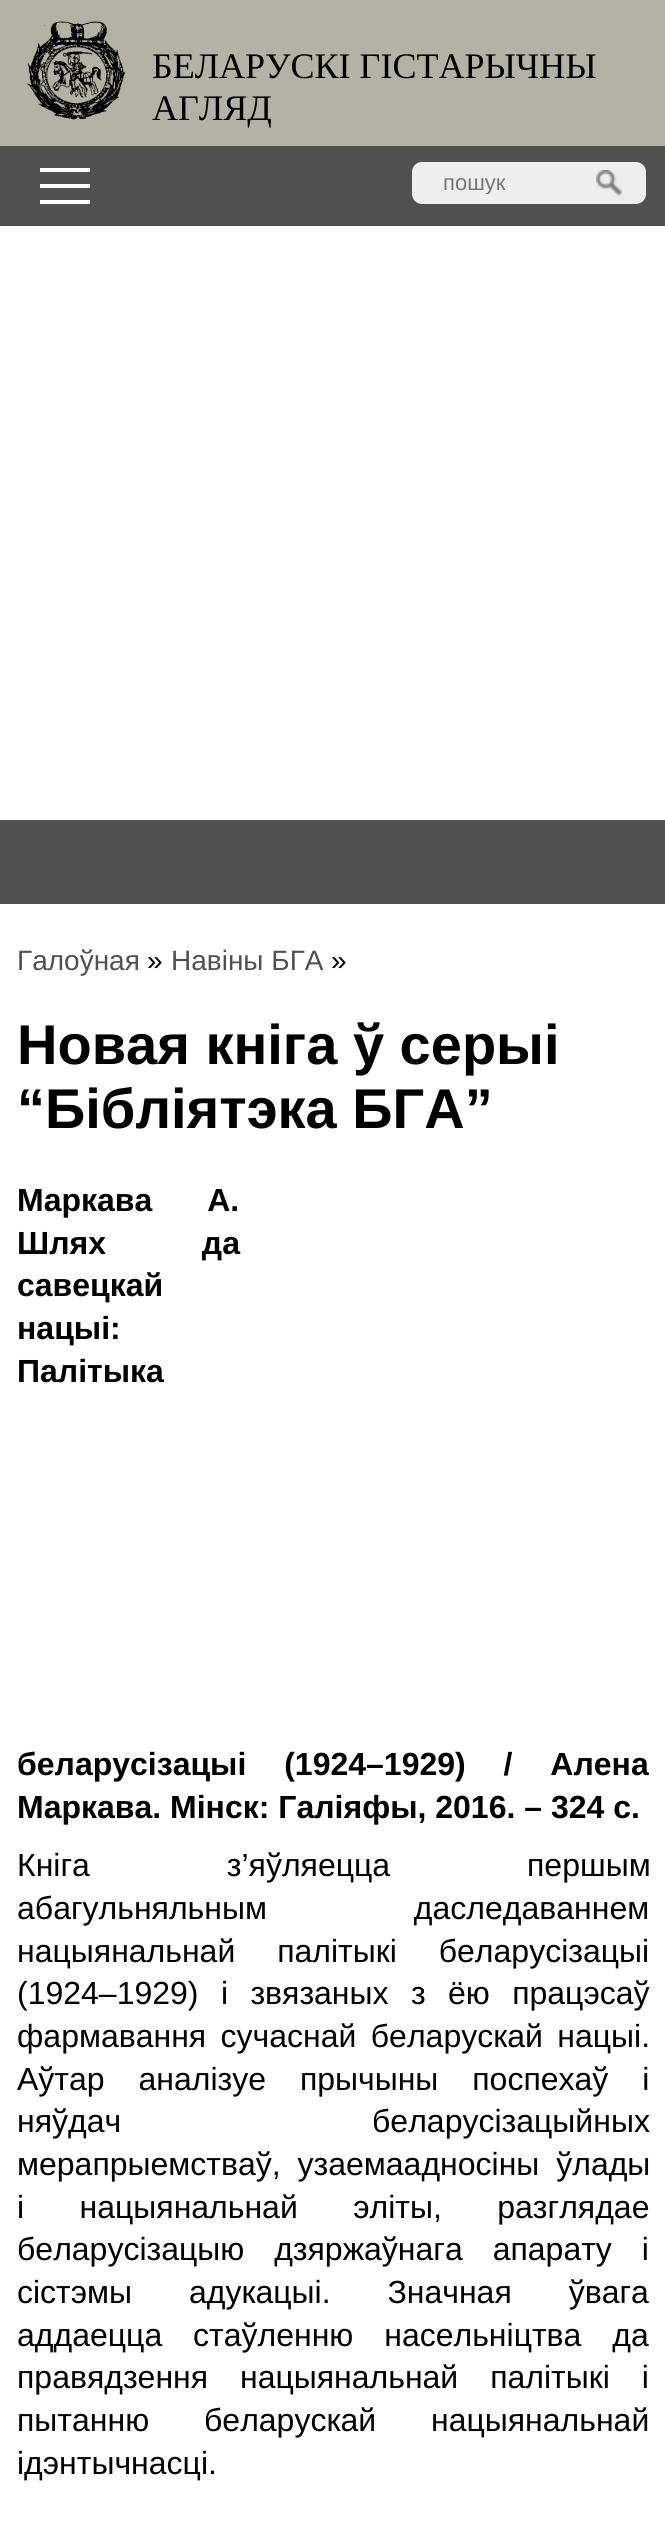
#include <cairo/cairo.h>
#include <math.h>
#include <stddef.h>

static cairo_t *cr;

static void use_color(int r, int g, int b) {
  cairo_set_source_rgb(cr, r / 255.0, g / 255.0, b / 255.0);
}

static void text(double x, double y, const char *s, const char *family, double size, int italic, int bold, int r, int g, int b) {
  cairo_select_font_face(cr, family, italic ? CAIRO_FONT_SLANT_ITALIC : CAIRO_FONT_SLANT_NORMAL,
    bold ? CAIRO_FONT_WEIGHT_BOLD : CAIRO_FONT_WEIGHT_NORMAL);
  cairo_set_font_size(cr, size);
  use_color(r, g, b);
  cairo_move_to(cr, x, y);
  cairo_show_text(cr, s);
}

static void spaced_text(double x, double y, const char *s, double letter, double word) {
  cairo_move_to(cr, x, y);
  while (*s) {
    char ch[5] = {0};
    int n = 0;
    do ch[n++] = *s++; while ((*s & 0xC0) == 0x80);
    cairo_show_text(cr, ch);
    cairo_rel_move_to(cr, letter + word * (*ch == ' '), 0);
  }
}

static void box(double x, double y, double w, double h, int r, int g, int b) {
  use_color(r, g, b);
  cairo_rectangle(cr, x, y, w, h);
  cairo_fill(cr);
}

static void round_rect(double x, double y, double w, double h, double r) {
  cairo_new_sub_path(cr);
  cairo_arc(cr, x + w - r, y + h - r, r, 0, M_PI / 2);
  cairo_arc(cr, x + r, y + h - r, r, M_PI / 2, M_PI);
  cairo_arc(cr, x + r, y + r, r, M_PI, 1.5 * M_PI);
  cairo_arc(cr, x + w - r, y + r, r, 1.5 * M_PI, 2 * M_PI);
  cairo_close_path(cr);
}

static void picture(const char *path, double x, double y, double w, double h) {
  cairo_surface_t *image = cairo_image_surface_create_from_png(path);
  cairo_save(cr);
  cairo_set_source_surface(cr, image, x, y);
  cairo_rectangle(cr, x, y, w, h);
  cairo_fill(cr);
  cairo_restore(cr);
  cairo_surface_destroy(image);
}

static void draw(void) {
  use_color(255, 255, 255);
  cairo_paint(cr);
  box(0, 0, 665, 146, 180, 178, 164);
  picture("img_01.png", 27, 21, 99, 99);
  box(0, 146, 665, 80, 80, 80, 80);
  box(40, 184, 50, 4, 255, 255, 255);
  box(40, 168, 50, 4, 255, 255, 255);
  box(40, 200, 50, 4, 255, 255, 255);
  use_color(238, 238, 238);
  round_rect(412, 162, 234, 42, 10);
  cairo_fill(cr);
  picture("img_02.png", 596, 170, 26, 26);
  box(0, 820, 665, 84, 80, 80, 80);
  text(152, 78, "БЕЛАРУСКІ ГІСТАРЫЧНЫ", "Liberation Serif", 36, 0, 0, 0, 0, 0);
  text(152, 120, "АГЛЯД", "Liberation Serif", 36, 0, 0, 0, 0, 0);
  cairo_save(cr);
  cairo_rectangle(cr, 442, 170, 130, 24);
  cairo_clip(cr);
  text(443, 190, "пошук", "Liberation Sans", 22, 0, 0, 117, 117, 117);
  cairo_restore(cr);
  text(17, 970, "Галоўная", "Liberation Sans", 28, 0, 0, 80, 80, 80);
  text(147, 970, "»", "Liberation Sans", 28, 0, 0, 0, 0, 0);
  text(171, 970, "Навіны БГА", "Liberation Sans", 28, 0, 0, 80, 80, 80);
  text(331, 970, "»", "Liberation Sans", 28, 0, 0, 0, 0, 0);
  text(17, 1064, "Новая кніга ў серыі", "Liberation Sans", 56, 0, 1, 0, 0, 0);
  text(17, 1128, "“Бібліятэка БГА”", "Liberation Sans", 56, 0, 1, 0, 0, 0);
  cairo_set_font_size(cr, 32);
  spaced_text(17, 1211, "Маркава A.", 0, 46);
  spaced_text(17, 1254, "Шлях да", 0, 87);
  text(17, 1296, "савецкай", "Liberation Sans", 32, 0, 1, 0, 0, 0);
  text(17, 1339, "нацыі:", "Liberation Sans", 32, 0, 1, 0, 0, 0);
  text(17, 1382, "Палітыка", "Liberation Sans", 32, 0, 1, 0, 0, 0);
  spaced_text(17, 1775, "беларусізацыі (1924–1929) / Алена", 0, 29);
  text(17, 1818, "Маркава. Мінск: Галіяфы, 2016. – 324 с.", "Liberation Sans", 32, 0, 1, 0, 0, 0);
  cairo_select_font_face(cr, "Liberation Sans", CAIRO_FONT_SLANT_NORMAL, CAIRO_FONT_WEIGHT_NORMAL);
  spaced_text(17, 1876, "Кніга з’яўляецца першым", 0, 128);
  spaced_text(17, 1919, "абагульняльным даследаваннем", 0, 138);
  spaced_text(17, 1962, "нацыянальнай палітыкі беларусізацыі", 0, 33);
  spaced_text(17, 2004, "(1924–1929) і звязаных з ёю працэсаў", 0, 13.5);
  spaced_text(17, 2047, "фармавання сучаснай беларускай нацыі.", 0, 5.5);
  spaced_text(17, 2090, "Аўтар аналізуе прычыны поспехаў і", 0, 25);
  spaced_text(17, 2132, "няўдач беларусізацыйных", 0, 242);
  spaced_text(17, 2175, "мерапрыемстваў, узаемаадносіны ўлады", 0, 8);
  spaced_text(17, 2218, "і нацыянальнай эліты, разглядае", 0, 46.5);
  spaced_text(17, 2260, "беларусізацыю дзяржаўнага апарату і", 0, 21);
  spaced_text(17, 2303, "сістэмы адукацыі. Значная ўвага", 0, 48);
  spaced_text(17, 2346, "аддаецца стаўленню насельніцтва да", 0, 22);
  spaced_text(17, 2388, "правядзення нацыянальнай палітыкі і", 0, 23);
  spaced_text(17, 2431, "пытанню беларускай нацыянальнай", 0, 46);
  text(17, 2474, "ідэнтычнасці.", "Liberation Sans", 32, 0, 0, 0, 0, 0);
}

int main(void) {
  cairo_surface_t *surface = cairo_image_surface_create(CAIRO_FORMAT_RGB24, 665, 2529);
  cr = cairo_create(surface);
  cairo_font_options_t *options = cairo_font_options_create();
  cairo_font_options_set_hint_metrics(options, CAIRO_HINT_METRICS_OFF);
  cairo_font_options_set_hint_style(options, CAIRO_HINT_STYLE_NONE);
  cairo_set_font_options(cr, options);
  cairo_set_miter_limit(cr, 4);
  draw();
  cairo_surface_write_to_png(surface, "out.png");
  cairo_font_options_destroy(options);
  cairo_destroy(cr);
  cairo_surface_destroy(surface);
  return 0;
}
